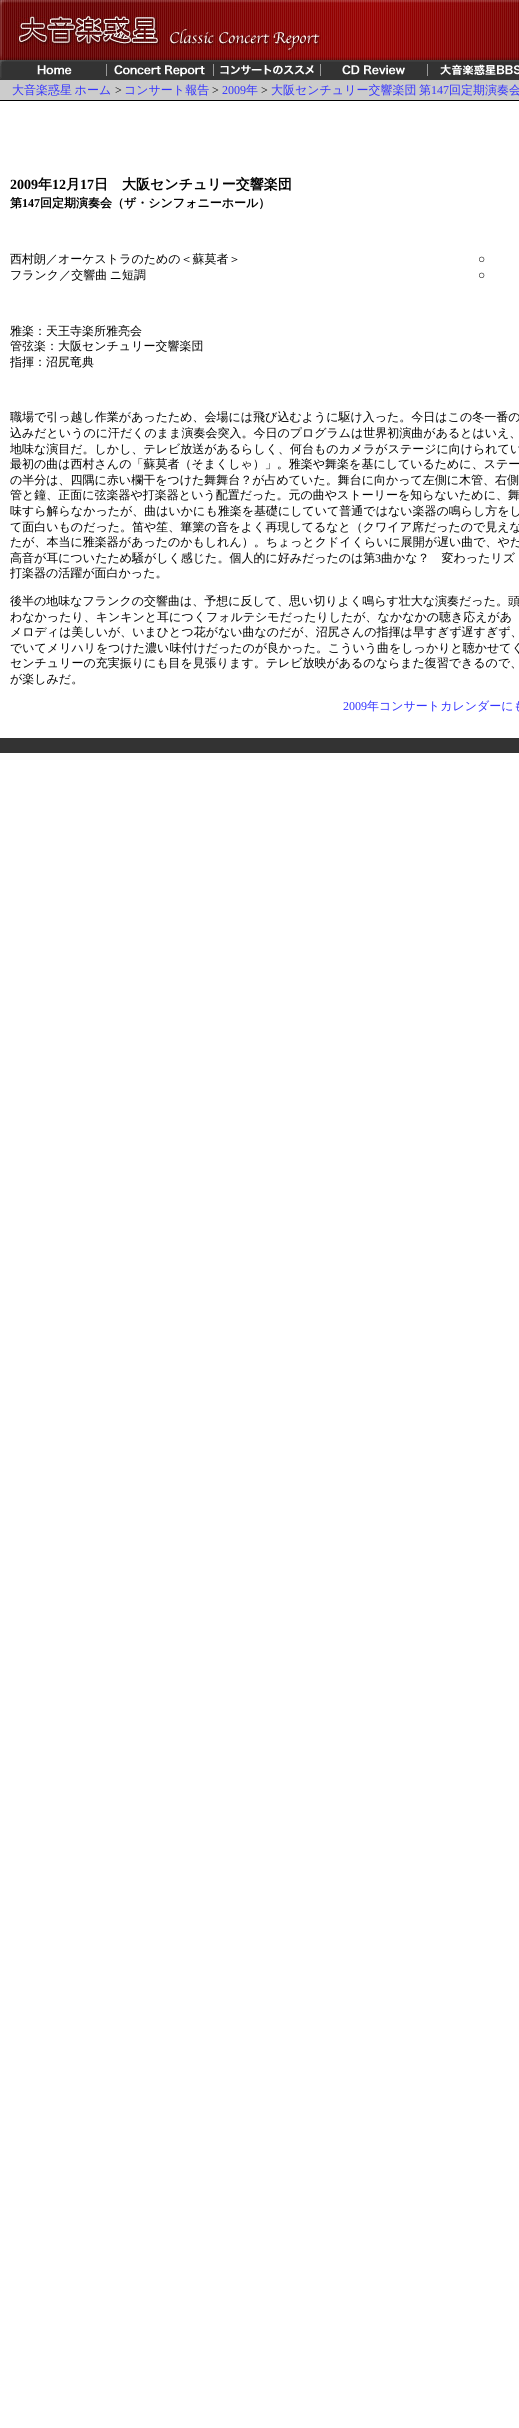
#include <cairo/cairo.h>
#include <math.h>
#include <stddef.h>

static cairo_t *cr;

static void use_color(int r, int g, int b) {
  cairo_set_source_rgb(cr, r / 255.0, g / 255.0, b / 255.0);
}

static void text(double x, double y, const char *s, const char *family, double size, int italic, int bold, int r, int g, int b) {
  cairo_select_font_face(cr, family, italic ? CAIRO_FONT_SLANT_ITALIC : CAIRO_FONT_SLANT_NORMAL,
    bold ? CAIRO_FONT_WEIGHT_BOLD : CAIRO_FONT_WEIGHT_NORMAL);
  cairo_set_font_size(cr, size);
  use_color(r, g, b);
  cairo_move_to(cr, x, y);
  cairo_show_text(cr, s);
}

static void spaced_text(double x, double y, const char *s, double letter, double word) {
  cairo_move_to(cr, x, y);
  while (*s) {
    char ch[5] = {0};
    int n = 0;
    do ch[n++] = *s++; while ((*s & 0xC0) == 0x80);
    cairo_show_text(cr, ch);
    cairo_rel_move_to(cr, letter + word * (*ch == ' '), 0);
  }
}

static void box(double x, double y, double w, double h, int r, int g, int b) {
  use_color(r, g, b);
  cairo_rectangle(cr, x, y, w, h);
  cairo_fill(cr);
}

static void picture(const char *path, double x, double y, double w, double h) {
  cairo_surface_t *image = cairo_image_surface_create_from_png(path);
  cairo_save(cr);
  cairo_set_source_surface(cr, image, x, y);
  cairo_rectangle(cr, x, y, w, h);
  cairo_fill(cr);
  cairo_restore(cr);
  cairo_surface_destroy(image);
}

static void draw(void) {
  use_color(255, 255, 255);
  cairo_paint(cr);
  picture("img_01.png", 0, 0, 519, 60);
  box(0, 76, 519, 4, 51, 51, 51);
  picture("img_02.png", 0, 60, 106, 19);
  picture("img_03.png", 106, 60, 107, 17);
  picture("img_04.png", 213, 60, 107, 16);
  picture("img_05.png", 320, 60, 107, 16);
  picture("img_06.png", 427, 60, 92, 16);
  box(0, 80, 519, 20, 204, 204, 204);
  box(0, 100, 519, 1, 0, 0, 0);
  box(0, 738, 519, 15, 51, 51, 51);
  cairo_select_font_face(cr, "WenQuanYi Zen Hei Medium", CAIRO_FONT_SLANT_NORMAL, CAIRO_FONT_WEIGHT_NORMAL);
  cairo_set_font_size(cr, 12);
  use_color(51, 51, 255);
  spaced_text(12, 94, "大音楽惑星 ホーム", 0, -1);
  text(115, 94, ">", "Liberation Serif", 12, 0, 0, 0, 0, 0);
  text(124, 94, "コンサート報告", "WenQuanYi Zen Hei Medium", 12, 0, 0, 51, 51, 255);
  text(212, 94, ">", "Liberation Serif", 12, 0, 0, 0, 0, 0);
  text(222, 94, "2009", "Liberation Serif", 12, 0, 0, 51, 51, 255);
  text(246, 94, "年", "WenQuanYi Zen Hei Medium", 12, 0, 0, 51, 51, 255);
  text(261, 94, ">", "Liberation Serif", 12, 0, 0, 0, 0, 0);
  cairo_select_font_face(cr, "WenQuanYi Zen Hei Medium", CAIRO_FONT_SLANT_NORMAL, CAIRO_FONT_WEIGHT_NORMAL);
  use_color(51, 51, 255);
  spaced_text(271, 94, "大阪センチュリー交響楽団 第", 0, -1);
  text(431, 94, "147", "Liberation Serif", 12, 0, 0, 51, 51, 255);
  text(449, 94, "回定期演奏会", "WenQuanYi Zen Hei Medium", 12, 0, 0, 51, 51, 255);
  text(10, 189, "2009", "Liberation Serif", 14, 0, 1, 0, 0, 0);
  text(38, 189, "年", "WenQuanYi Zen Hei", 14, 0, 1, 0, 0, 0);
  text(52, 189, "12", "Liberation Serif", 14, 0, 1, 0, 0, 0);
  text(66, 189, "月", "WenQuanYi Zen Hei", 14, 0, 1, 0, 0, 0);
  text(80, 189, "17", "Liberation Serif", 14, 0, 1, 0, 0, 0);
  text(94, 189, "日　大阪センチュリー交響楽団", "WenQuanYi Zen Hei", 14, 0, 1, 0, 0, 0);
  text(10, 207, "第", "WenQuanYi Zen Hei", 12, 0, 1, 0, 0, 0);
  text(22, 207, "147", "Liberation Serif", 12, 0, 1, 0, 0, 0);
  text(40, 207, "回定期演奏会（ザ・シンフォニーホール）", "WenQuanYi Zen Hei", 12, 0, 1, 0, 0, 0);
  text(10, 263, "西村朗／オーケストラのための＜蘇莫者＞", "WenQuanYi Zen Hei Medium", 12, 0, 0, 0, 0, 0);
  spaced_text(10, 279, "フランク／交響曲 ニ短調", 0, -1);
  text(478, 263, "○", "Liberation Serif", 12, 0, 0, 0, 0, 0);
  text(478, 279, "○", "Liberation Serif", 12, 0, 0, 0, 0, 0);
  text(10, 335, "雅楽：天王寺楽所雅亮会", "WenQuanYi Zen Hei Medium", 12, 0, 0, 0, 0, 0);
  text(10, 350, "管弦楽：大阪センチュリー交響楽団", "WenQuanYi Zen Hei Medium", 12, 0, 0, 0, 0, 0);
  text(10, 366, "指揮：沼尻竜典", "WenQuanYi Zen Hei Medium", 12, 0, 0, 0, 0, 0);
  text(10, 421, "職場で引っ越し作業があったため、会場には飛び込むように駆け入った。今日はこの冬一番の", "WenQuanYi Zen Hei Medium", 12, 0, 0, 0, 0, 0);
  text(10, 437, "込みだというのに汗だくのまま演奏会突入。今日のプログラムは世界初演曲があるとはいえ、", "WenQuanYi Zen Hei Medium", 12, 0, 0, 0, 0, 0);
  text(10, 453, "地味な演目だ。しかし、テレビ放送があるらしく、何台ものカメラがステージに向けられてい", "WenQuanYi Zen Hei Medium", 12, 0, 0, 0, 0, 0);
  text(10, 468, "最初の曲は西村さんの「蘇莫者（そまくしゃ）」。雅楽や舞楽を基にしているために、ステー", "WenQuanYi Zen Hei Medium", 12, 0, 0, 0, 0, 0);
  text(10, 484, "の半分は、四隅に赤い欄干をつけた舞舞台？が占めていた。舞台に向かって左側に木管、右側", "WenQuanYi Zen Hei Medium", 12, 0, 0, 0, 0, 0);
  text(10, 499, "管と鐘、正面に弦楽器や打楽器という配置だった。元の曲やストーリーを知らないために、舞", "WenQuanYi Zen Hei Medium", 12, 0, 0, 0, 0, 0);
  text(10, 515, "味すら解らなかったが、曲はいかにも雅楽を基礎にしていて普通ではない楽器の鳴らし方をし", "WenQuanYi Zen Hei Medium", 12, 0, 0, 0, 0, 0);
  text(10, 531, "て面白いものだった。笛や笙、篳篥の音をよく再現してるなと（クワイア席だったので見えな", "WenQuanYi Zen Hei Medium", 12, 0, 0, 0, 0, 0);
  text(10, 546, "たが、本当に雅楽器があったのかもしれん）。ちょっとクドイくらいに展開が遅い曲で、やた", "WenQuanYi Zen Hei Medium", 12, 0, 0, 0, 0, 0);
  text(10, 562, "高音が耳についたため騒がしく感じた。個人的に好みだったのは第", "WenQuanYi Zen Hei Medium", 12, 0, 0, 0, 0, 0);
  text(375, 562, "3", "Liberation Serif", 12, 0, 0, 0, 0, 0);
  text(381, 562, "曲かな？　変わったリズ", "WenQuanYi Zen Hei Medium", 12, 0, 0, 0, 0, 0);
  text(10, 577, "打楽器の活躍が面白かった。", "WenQuanYi Zen Hei Medium", 12, 0, 0, 0, 0, 0);
  text(10, 605, "後半の地味なフランクの交響曲は、予想に反して、思い切りよく鳴らす壮大な演奏だった。頭", "WenQuanYi Zen Hei Medium", 12, 0, 0, 0, 0, 0);
  text(10, 621, "わなかったり、キンキンと耳につくフォルテシモだったりしたが、なかなかの聴き応えがあ", "WenQuanYi Zen Hei Medium", 12, 0, 0, 0, 0, 0);
  text(10, 636, "メロディは美しいが、いまひとつ花がない曲なのだが、沼尻さんの指揮は早すぎず遅すぎず、", "WenQuanYi Zen Hei Medium", 12, 0, 0, 0, 0, 0);
  text(10, 652, "でいてメリハリをつけた濃い味付けだったのが良かった。こういう曲をしっかりと聴かせてく", "WenQuanYi Zen Hei Medium", 12, 0, 0, 0, 0, 0);
  text(10, 667, "センチュリーの充実振りにも目を見張ります。テレビ放映があるのならまた復習できるので、", "WenQuanYi Zen Hei Medium", 12, 0, 0, 0, 0, 0);
  text(10, 683, "が楽しみだ。", "WenQuanYi Zen Hei Medium", 12, 0, 0, 0, 0, 0);
  text(343, 710, "2009", "Liberation Serif", 12, 0, 0, 51, 51, 255);
  text(367, 710, "年コンサートカレンダーにも", "WenQuanYi Zen Hei Medium", 12, 0, 0, 51, 51, 255);
}

int main(void) {
  cairo_surface_t *surface = cairo_image_surface_create(CAIRO_FORMAT_RGB24, 519, 2428);
  cr = cairo_create(surface);
  cairo_font_options_t *options = cairo_font_options_create();
  cairo_font_options_set_hint_metrics(options, CAIRO_HINT_METRICS_OFF);
  cairo_font_options_set_hint_style(options, CAIRO_HINT_STYLE_NONE);
  cairo_set_font_options(cr, options);
  cairo_set_miter_limit(cr, 4);
  draw();
  cairo_surface_write_to_png(surface, "out.png");
  cairo_font_options_destroy(options);
  cairo_destroy(cr);
  cairo_surface_destroy(surface);
  return 0;
}
